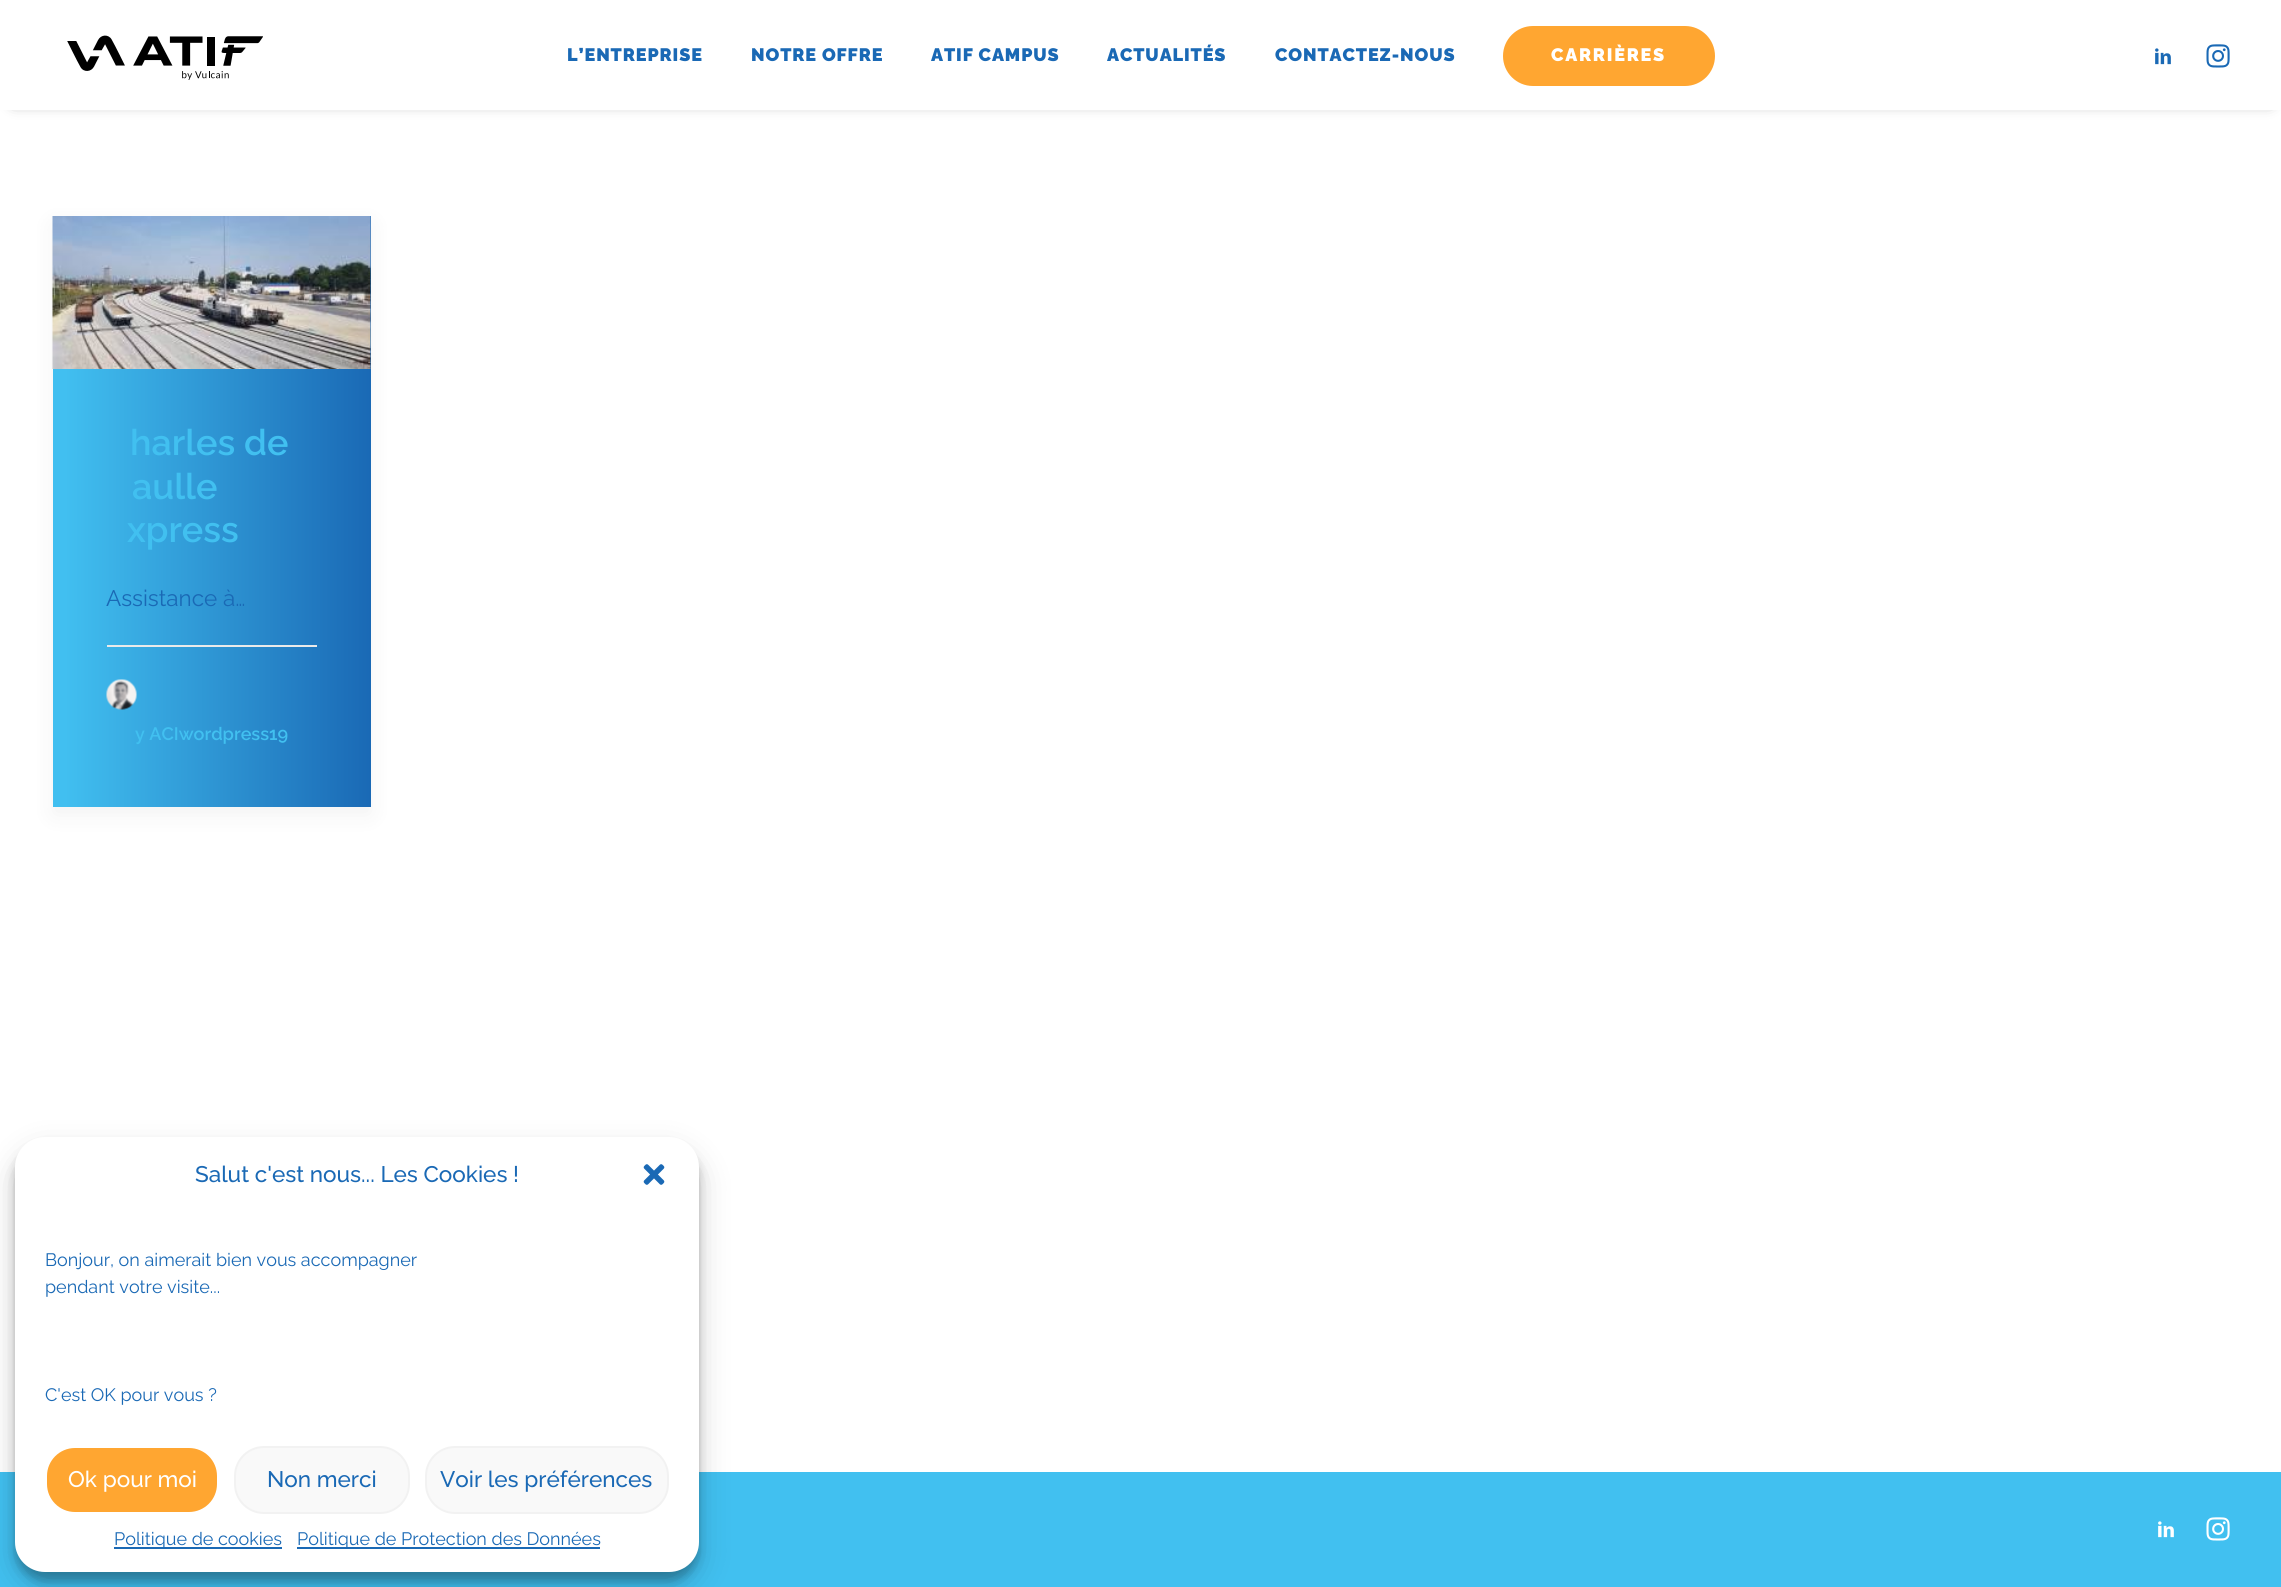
#include <cairo/cairo.h>
#include <math.h>
#include <stddef.h>

static cairo_t *cr;

static void use_color(int r, int g, int b) {
  cairo_set_source_rgb(cr, r / 255.0, g / 255.0, b / 255.0);
}

static void text(double x, double y, const char *s, const char *family, double size, int italic, int bold, int r, int g, int b) {
  cairo_select_font_face(cr, family, italic ? CAIRO_FONT_SLANT_ITALIC : CAIRO_FONT_SLANT_NORMAL,
    bold ? CAIRO_FONT_WEIGHT_BOLD : CAIRO_FONT_WEIGHT_NORMAL);
  cairo_set_font_size(cr, size);
  use_color(r, g, b);
  cairo_move_to(cr, x, y);
  cairo_show_text(cr, s);
}

static void spaced_text(double x, double y, const char *s, double letter, double word) {
  cairo_move_to(cr, x, y);
  while (*s) {
    char ch[5] = {0};
    int n = 0;
    do ch[n++] = *s++; while ((*s & 0xC0) == 0x80);
    cairo_show_text(cr, ch);
    cairo_rel_move_to(cr, letter + word * (*ch == ' '), 0);
  }
}

static void box(double x, double y, double w, double h, int r, int g, int b) {
  use_color(r, g, b);
  cairo_rectangle(cr, x, y, w, h);
  cairo_fill(cr);
}

static void round_rect(double x, double y, double w, double h, double r) {
  cairo_new_sub_path(cr);
  cairo_arc(cr, x + w - r, y + h - r, r, 0, M_PI / 2);
  cairo_arc(cr, x + r, y + h - r, r, M_PI / 2, M_PI);
  cairo_arc(cr, x + r, y + r, r, M_PI, 1.5 * M_PI);
  cairo_arc(cr, x + w - r, y + r, r, 1.5 * M_PI, 2 * M_PI);
  cairo_close_path(cr);
}

static void shadow(double x, double y, double w, double h, double r, double blur, double alpha) {
  cairo_push_group_with_content(cr, CAIRO_CONTENT_ALPHA);
  cairo_set_operator(cr, CAIRO_OPERATOR_SOURCE);
  for (int i = 15; i >= -15 && fmin(w, h) + blur * i / 3 > 0; i -= 2) {
    double e = blur * i / 6;
    cairo_set_source_rgba(cr, 0, 0, 0, alpha * erfc((i - 1) / 8.5) / 2);
    round_rect(x - e, y - e, w + 2 * e, h + 2 * e, fmax(0, fmin(r + e + blur * .6, fmin(w, h) / 2 + e)));
    cairo_fill(cr);
  }
  cairo_pattern_t *soft = cairo_pop_group(cr);
  cairo_mask(cr, soft);
  cairo_pattern_destroy(soft);
}

static void picture(const char *path, double x, double y, double w, double h) {
  cairo_surface_t *image = cairo_image_surface_create_from_png(path);
  cairo_save(cr);
  cairo_set_source_surface(cr, image, x, y);
  cairo_rectangle(cr, x, y, w, h);
  cairo_fill(cr);
  cairo_restore(cr);
  cairo_surface_destroy(image);
}

static void draw(void) {
  cairo_pattern_t *gradient;
  use_color(255, 255, 255);
  cairo_paint(cr);
  cairo_save(cr);
  cairo_set_fill_rule(cr, CAIRO_FILL_RULE_EVEN_ODD);
  cairo_new_path(cr);
  cairo_move_to(cr, 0, 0);
  cairo_line_to(cr, 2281, 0);
  cairo_line_to(cr, 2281, 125);
  cairo_line_to(cr, 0, 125);
  cairo_close_path(cr);
  cairo_move_to(cr, -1, 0);
  cairo_line_to(cr, 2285, 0);
  cairo_line_to(cr, 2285, 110);
  cairo_line_to(cr, -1, 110);
  cairo_close_path(cr);
  cairo_clip(cr);
  use_color(0, 0, 0);
  shadow(14, 21, 2256, 80, 0, 7.5, 0.6);
  cairo_restore(cr);
  picture("img_01.png", 67, 35, 196, 45);
  use_color(255, 166, 49);
  round_rect(1504, 27, 210, 58, 29);
  cairo_fill_preserve(cr);
  cairo_stroke(cr);
  picture("img_02.png", 2155, 48, 16, 17);
  picture("img_03.png", 2206, 44, 24, 24);
  use_color(0, 0, 0);
  shadow(53, 224, 318, 591, 0, 11, 0.05);
  gradient = cairo_pattern_create_linear(52, 512, 371, 512);
  cairo_pattern_add_color_stop_rgba(gradient, 0.04, 0.255, 0.749, 0.941, 1);
  cairo_pattern_add_color_stop_rgba(gradient, 1, 0.102, 0.412, 0.71, 1);
  cairo_set_source(cr, gradient);
  cairo_pattern_destroy(gradient);
  cairo_rectangle(cr, 53, 216, 318, 591);
  cairo_fill(cr);
  picture("img_04.png", 52, 216, 319, 153);
  box(107, 645, 210, 2, 234, 234, 234);
  picture("img_05.png", 106, 679, 31, 31);
  box(0, 1472, 2281, 115, 65, 192, 240);
  picture("img_06.png", 2158, 1521, 16, 17);
  picture("img_07.png", 2206, 1517, 24, 24);
  use_color(0, 0, 0);
  shadow(15, 1146, 684, 435, 30, 4.5, 0.23);
  shadow(15, 1152, 684, 435, 30, 15, 0.19);
  use_color(255, 255, 255);
  round_rect(15, 1137, 684, 435, 30);
  cairo_fill(cr);
  picture("img_08.png", 643, 1164, 22, 21);
  use_color(255, 166, 49);
  round_rect(46, 1447, 172, 66, 29);
  cairo_fill_preserve(cr);
  use_color(255, 255, 255);
  cairo_stroke(cr);
  use_color(249, 249, 249);
  round_rect(235, 1447, 174, 66, 29);
  cairo_fill_preserve(cr);
  use_color(242, 242, 242);
  cairo_stroke(cr);
  use_color(249, 249, 249);
  round_rect(426, 1447, 242, 66, 29);
  cairo_fill_preserve(cr);
  use_color(242, 242, 242);
  cairo_stroke(cr);
  box(114, 1547, 168, 2, 26, 105, 181);
  box(297, 1547, 303, 2, 26, 105, 181);
  cairo_select_font_face(cr, "Raleway Black", CAIRO_FONT_SLANT_NORMAL, CAIRO_FONT_WEIGHT_NORMAL);
  cairo_set_font_size(cr, 18);
  spaced_text(567, 61, "L’ENTREPRISE", 0.9, 0);
  spaced_text(751, 61, "NOTRE OFFRE", 0.9, 0);
  spaced_text(931, 61, "ATIF CAMPUS", 0.9, 0);
  spaced_text(1107, 61, "ACTUALITÉS", 0.9, 0);
  spaced_text(1275, 61, "CONTACTEZ-NOUS", 0.9, 0);
  use_color(255, 255, 255);
  spaced_text(1551, 61, "CARRIÈRES", 1.75, 0);
  text(130, 455, "harles de", "Raleway SemiBold", 36, 0, 0, 65, 192, 240);
  text(132, 499, "aulle", "Raleway SemiBold", 36, 0, 0, 65, 192, 240);
  text(127, 542, "xpress", "Raleway SemiBold", 36, 0, 0, 65, 192, 240);
  text(106, 606, "Assistance à…", "Raleway", 22.5, 0, 0, 26, 105, 181);
  text(135, 740, "y ACIwordpress19", "Raleway SemiBold", 18, 0, 0, 65, 192, 240);
  text(195, 1182, "Salut c'est nous... Les Cookies !", "Raleway Medium", 22.5, 0, 0, 26, 105, 181);
  text(45, 1266, "Bonjour, on aimerait bien vous accompagner", "Raleway", 18, 0, 0, 26, 105, 181);
  text(45, 1293, "pendant votre visite...", "Raleway", 18, 0, 0, 26, 105, 181);
  text(45, 1401, "C'est OK pour vous ?", "Raleway", 18, 0, 0, 26, 105, 181);
  text(68, 1487, "Ok pour moi", "Raleway Medium", 22.5, 0, 0, 255, 255, 255);
  text(267, 1487, "Non merci", "Raleway Medium", 22.5, 0, 0, 26, 105, 181);
  text(440, 1487, "Voir les préférences", "Raleway Medium", 22.5, 0, 0, 26, 105, 181);
  text(114, 1545, "Politique de cookies", "Raleway", 18, 0, 0, 26, 105, 181);
  text(297, 1545, "Politique de Protection des Données", "Raleway", 18, 0, 0, 26, 105, 181);
}

int main(void) {
  cairo_surface_t *surface = cairo_image_surface_create(CAIRO_FORMAT_RGB24, 2281, 1587);
  cr = cairo_create(surface);
  cairo_font_options_t *options = cairo_font_options_create();
  cairo_font_options_set_hint_metrics(options, CAIRO_HINT_METRICS_OFF);
  cairo_font_options_set_hint_style(options, CAIRO_HINT_STYLE_NONE);
  cairo_set_font_options(cr, options);
  cairo_set_miter_limit(cr, 4);
  draw();
  cairo_surface_write_to_png(surface, "out.png");
  cairo_font_options_destroy(options);
  cairo_destroy(cr);
  cairo_surface_destroy(surface);
  return 0;
}
